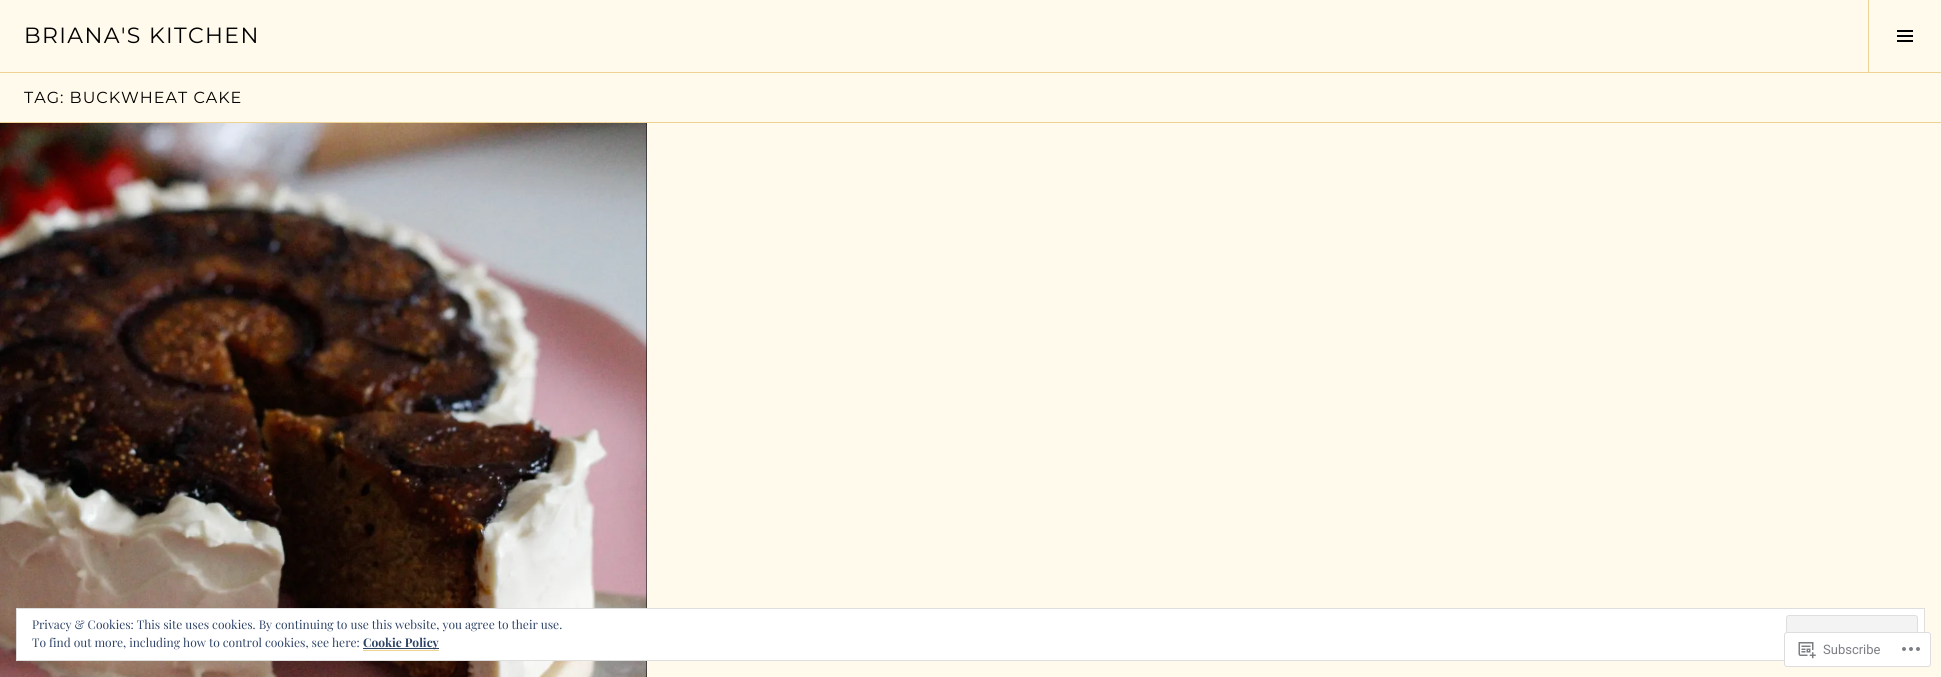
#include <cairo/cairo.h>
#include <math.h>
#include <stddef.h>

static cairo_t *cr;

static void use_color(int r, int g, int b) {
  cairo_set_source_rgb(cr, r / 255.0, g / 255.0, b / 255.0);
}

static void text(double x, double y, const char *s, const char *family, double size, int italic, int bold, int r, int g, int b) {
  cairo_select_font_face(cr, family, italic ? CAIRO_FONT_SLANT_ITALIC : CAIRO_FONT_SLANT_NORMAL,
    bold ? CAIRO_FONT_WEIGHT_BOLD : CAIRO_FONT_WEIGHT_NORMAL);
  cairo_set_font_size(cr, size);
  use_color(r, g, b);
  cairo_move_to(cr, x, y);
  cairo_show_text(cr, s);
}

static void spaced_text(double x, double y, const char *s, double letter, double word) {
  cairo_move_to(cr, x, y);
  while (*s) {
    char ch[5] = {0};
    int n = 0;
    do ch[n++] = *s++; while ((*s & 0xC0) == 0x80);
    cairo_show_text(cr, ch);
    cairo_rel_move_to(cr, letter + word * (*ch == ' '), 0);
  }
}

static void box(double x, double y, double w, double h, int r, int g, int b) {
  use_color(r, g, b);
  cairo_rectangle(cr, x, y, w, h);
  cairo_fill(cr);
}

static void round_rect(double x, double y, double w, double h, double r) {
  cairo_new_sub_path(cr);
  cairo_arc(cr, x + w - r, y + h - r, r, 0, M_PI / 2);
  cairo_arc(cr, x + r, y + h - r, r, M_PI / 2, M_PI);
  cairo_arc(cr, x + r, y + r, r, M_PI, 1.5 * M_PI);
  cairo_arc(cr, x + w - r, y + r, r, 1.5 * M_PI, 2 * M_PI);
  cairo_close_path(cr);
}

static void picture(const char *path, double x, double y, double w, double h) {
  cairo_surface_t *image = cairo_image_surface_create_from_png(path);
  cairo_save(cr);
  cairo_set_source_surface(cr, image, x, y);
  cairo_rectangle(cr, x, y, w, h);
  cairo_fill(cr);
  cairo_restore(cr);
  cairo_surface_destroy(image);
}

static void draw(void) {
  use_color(255, 250, 235);
  cairo_paint(cr);
  box(0, 72, 1941, 1, 238, 211, 149);
  box(1868, 0, 1, 72, 238, 211, 149);
  picture("img_01.png", 1897, 30, 16, 12);
  box(0, 122, 1941, 1, 238, 211, 149);
  box(646, 123, 1, 554, 0, 0, 0);
  picture("img_02.png", 0, 123, 647, 554);
  use_color(255, 255, 255);
  cairo_rectangle(cr, 16.5, 608.5, 1908, 52);
  cairo_fill_preserve(cr);
  use_color(222, 222, 222);
  cairo_set_line_width(cr, 1);
  cairo_stroke(cr);
  use_color(243, 243, 243);
  round_rect(1786.5, 615.5, 131, 38, 2.5);
  cairo_fill_preserve(cr);
  use_color(222, 222, 222);
  cairo_stroke(cr);
  box(363, 650, 76, 1, 238, 211, 149);
  box(363, 648, 76, 1, 46, 68, 103);
  cairo_set_source_rgba(cr, 1, 1, 1, 0.98);
  round_rect(1784, 632, 147, 35, 3);
  cairo_fill(cr);
  round_rect(1784.5, 632.5, 146, 34, 2.5);
  cairo_set_source_rgba(cr, 0.863, 0.863, 0.871, 0.98);
  cairo_stroke(cr);
  picture("img_03.png", 1798, 642, 18, 17);
  picture("img_04.png", 1902, 647, 18, 4);
  cairo_select_font_face(cr, "Montserrat", CAIRO_FONT_SLANT_NORMAL, CAIRO_FONT_WEIGHT_NORMAL);
  cairo_set_font_size(cr, 22);
  use_color(0, 0, 0);
  spaced_text(24, 43, "BRIANA'S KITCHEN", 1.4, 0);
  cairo_set_font_size(cr, 16);
  spaced_text(24, 103, "TAG: BUCKWHEAT CAKE", 1, 0);
  text(32, 629, "Privacy & Cookies: This site uses cookies. By continuing to use this website, you agree to their use.", "Playfair Display", 12, 0, 0, 46, 68, 103);
  text(32, 647, "To find out more, including how to control cookies, see here:", "Playfair Display", 12, 0, 0, 46, 68, 103);
  text(363, 647, "Cookie Policy", "Playfair Display", 12, 0, 1, 46, 68, 103);
  text(1823, 654, "Subscribe", "Roboto", 13, 0, 0, 123, 127, 132);
}

int main(void) {
  cairo_surface_t *surface = cairo_image_surface_create(CAIRO_FORMAT_RGB24, 1941, 677);
  cr = cairo_create(surface);
  cairo_font_options_t *options = cairo_font_options_create();
  cairo_font_options_set_hint_metrics(options, CAIRO_HINT_METRICS_OFF);
  cairo_font_options_set_hint_style(options, CAIRO_HINT_STYLE_NONE);
  cairo_set_font_options(cr, options);
  cairo_set_miter_limit(cr, 4);
  draw();
  cairo_surface_write_to_png(surface, "out.png");
  cairo_font_options_destroy(options);
  cairo_destroy(cr);
  cairo_surface_destroy(surface);
  return 0;
}
